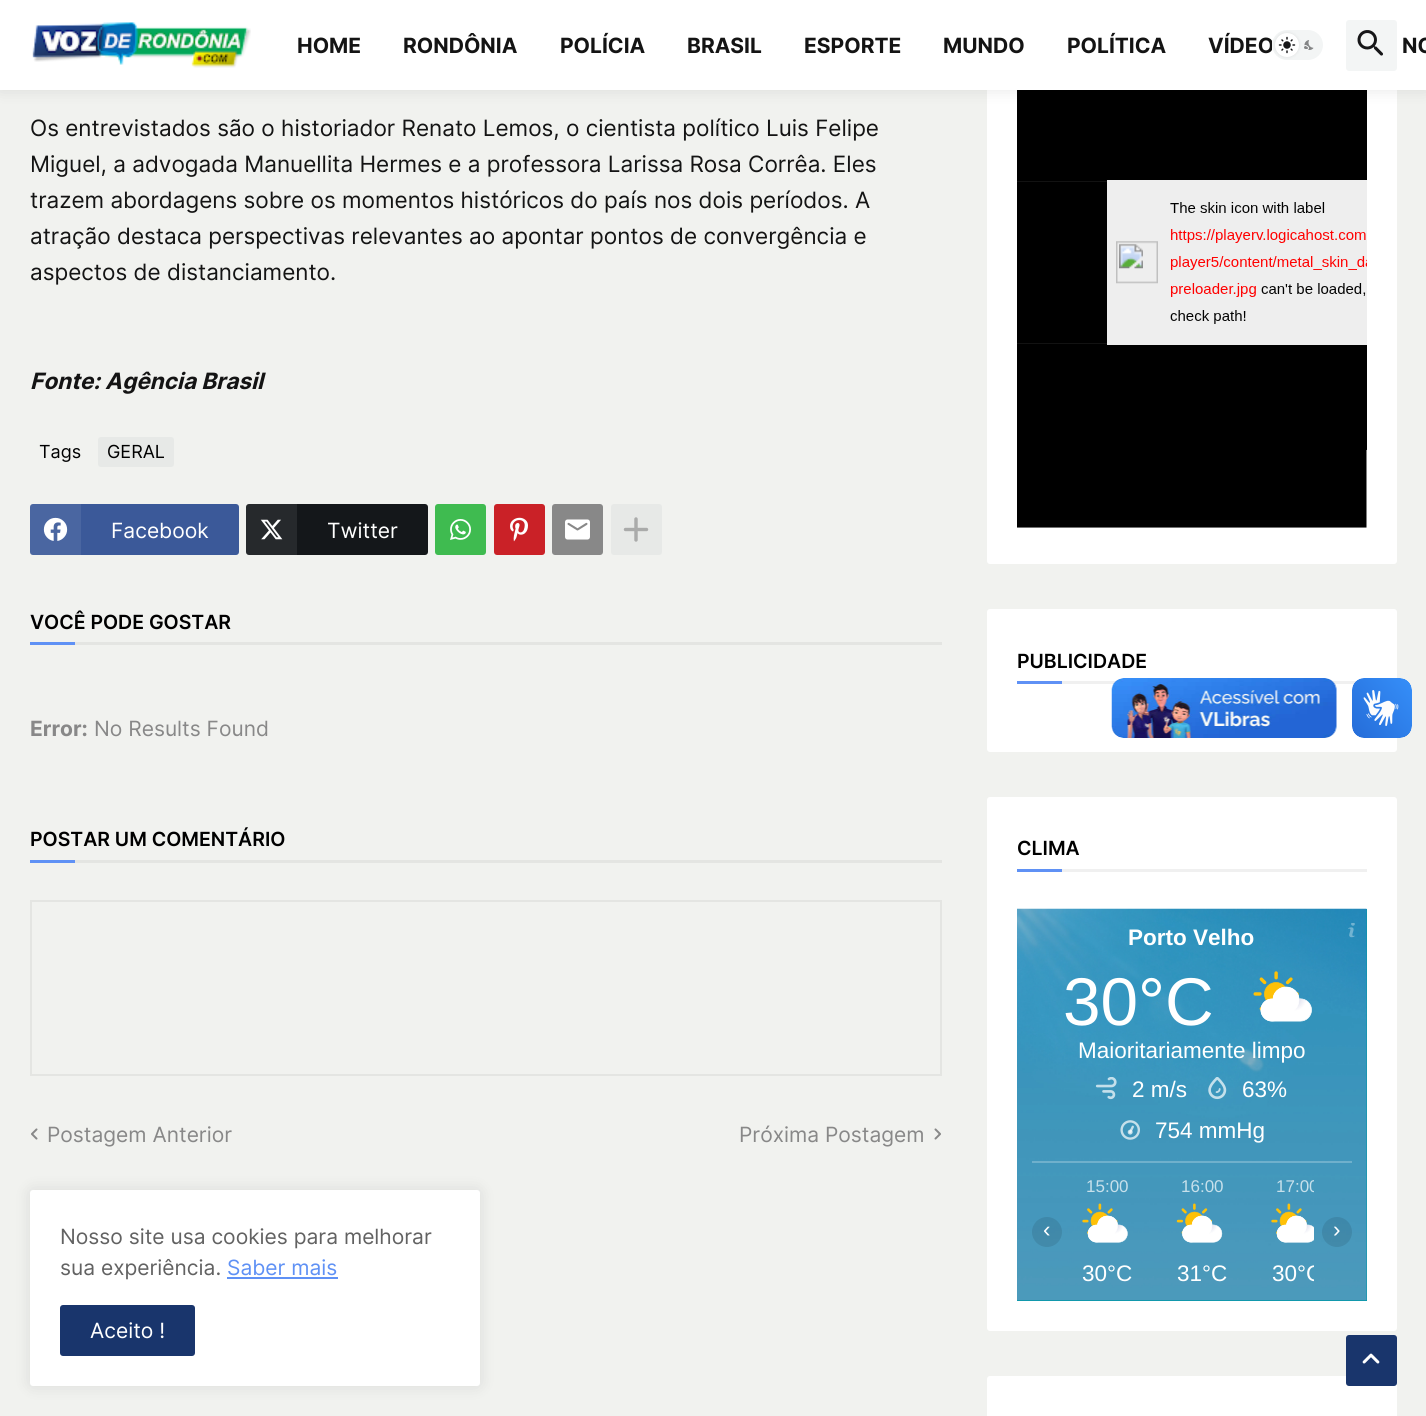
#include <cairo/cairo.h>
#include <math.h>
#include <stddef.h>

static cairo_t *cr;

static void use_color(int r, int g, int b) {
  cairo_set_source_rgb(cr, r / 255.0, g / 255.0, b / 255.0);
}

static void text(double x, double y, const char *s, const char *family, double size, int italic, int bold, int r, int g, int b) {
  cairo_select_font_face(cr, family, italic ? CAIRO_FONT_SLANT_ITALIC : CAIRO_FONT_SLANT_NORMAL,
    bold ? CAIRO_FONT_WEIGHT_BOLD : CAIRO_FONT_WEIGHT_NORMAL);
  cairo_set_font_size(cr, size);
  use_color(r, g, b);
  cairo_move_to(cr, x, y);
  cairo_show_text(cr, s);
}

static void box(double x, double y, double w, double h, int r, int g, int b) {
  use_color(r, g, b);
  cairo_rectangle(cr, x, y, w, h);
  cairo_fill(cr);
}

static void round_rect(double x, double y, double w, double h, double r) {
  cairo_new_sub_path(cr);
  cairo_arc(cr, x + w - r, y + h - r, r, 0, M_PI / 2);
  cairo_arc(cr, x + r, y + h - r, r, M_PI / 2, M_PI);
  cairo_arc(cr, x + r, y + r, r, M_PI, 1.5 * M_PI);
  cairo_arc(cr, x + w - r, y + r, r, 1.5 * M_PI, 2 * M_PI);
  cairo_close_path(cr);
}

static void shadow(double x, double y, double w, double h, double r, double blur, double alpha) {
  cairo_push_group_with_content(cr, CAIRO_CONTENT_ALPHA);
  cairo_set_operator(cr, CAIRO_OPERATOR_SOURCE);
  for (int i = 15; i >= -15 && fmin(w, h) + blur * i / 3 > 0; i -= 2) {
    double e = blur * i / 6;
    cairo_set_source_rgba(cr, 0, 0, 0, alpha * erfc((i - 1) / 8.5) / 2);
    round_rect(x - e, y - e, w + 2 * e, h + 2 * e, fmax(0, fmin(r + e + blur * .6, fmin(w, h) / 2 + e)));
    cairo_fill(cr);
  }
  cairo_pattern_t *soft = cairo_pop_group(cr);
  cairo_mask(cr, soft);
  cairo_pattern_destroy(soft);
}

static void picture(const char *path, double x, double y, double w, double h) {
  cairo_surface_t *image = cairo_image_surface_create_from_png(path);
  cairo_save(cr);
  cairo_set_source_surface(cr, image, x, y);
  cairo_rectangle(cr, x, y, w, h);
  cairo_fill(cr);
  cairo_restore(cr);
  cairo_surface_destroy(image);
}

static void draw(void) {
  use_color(241, 242, 239);
  cairo_paint(cr);
  use_color(255, 255, 255);
  round_rect(987, -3, 410, 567, 3);
  cairo_fill(cr);
  picture("img_13.png", 1017, 90, 350, 438);
  use_color(0, 0, 0);
  shadow(0, 0, 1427, 90, 0, 7.5, 0.1);
  box(0, 0, 1426, 90, 255, 255, 255);
  use_color(243, 245, 245);
  round_rect(1346, 20, 51, 51, 3);
  cairo_fill(cr);
  picture("img_03.png", 1357, 30, 26, 26);
  picture("img_04.png", 32, 22, 219, 46);
  use_color(231, 233, 231);
  round_rect(98, 437, 76, 30, 3);
  cairo_fill(cr);
  use_color(59, 89, 153);
  round_rect(30, 504, 209, 51, 3);
  cairo_fill(cr);
  cairo_set_source_rgba(cr, 1, 1, 1, 0.08);
  cairo_new_path(cr);
  cairo_move_to(cr, 33, 504);
  cairo_line_to(cr, 81, 504);
  cairo_line_to(cr, 81, 555);
  cairo_line_to(cr, 33, 555);
  cairo_curve_to(cr, 31.5, 555, 30, 553.5, 30, 552);
  cairo_line_to(cr, 30, 507);
  cairo_curve_to(cr, 30, 505.5, 31.5, 504, 33, 504);
  cairo_close_path(cr);
  cairo_fill(cr);
  picture("img_05.png", 43, 517, 25, 24);
  use_color(20, 23, 26);
  round_rect(246, 504, 182, 51, 3);
  cairo_fill(cr);
  cairo_set_source_rgba(cr, 1, 1, 1, 0.08);
  cairo_new_path(cr);
  cairo_move_to(cr, 249, 504);
  cairo_line_to(cr, 297, 504);
  cairo_line_to(cr, 297, 555);
  cairo_line_to(cr, 249, 555);
  cairo_curve_to(cr, 247.5, 555, 246, 553.5, 246, 552);
  cairo_line_to(cr, 246, 507);
  cairo_curve_to(cr, 246, 505.5, 247.5, 504, 249, 504);
  cairo_close_path(cr);
  cairo_fill(cr);
  picture("img_06.png", 260, 519, 23, 21);
  use_color(63, 187, 80);
  round_rect(435, 504, 51, 51, 3);
  cairo_fill(cr);
  picture("img_07.png", 450, 519, 21, 21);
  use_color(202, 33, 39);
  round_rect(494, 504, 51, 51, 3);
  cairo_fill(cr);
  picture("img_08.png", 510, 517, 18, 25);
  use_color(136, 136, 136);
  round_rect(552, 504, 51, 51, 3);
  cairo_fill(cr);
  picture("img_09.png", 565, 519, 25, 21);
  use_color(231, 233, 231);
  round_rect(611, 504, 51, 51, 3);
  cairo_fill(cr);
  picture("img_10.png", 623, 517, 26, 25);
  box(75, 642, 867, 3, 228, 229, 226);
  box(30, 642, 45, 3, 95, 145, 245);
  box(75, 860, 867, 3, 228, 229, 226);
  box(30, 860, 45, 3, 95, 145, 245);
  cairo_rectangle(cr, 31, 901, 910, 174);
  use_color(228, 229, 226);
  cairo_stroke(cr);
  picture("img_11.png", 31, 1128, 7, 12);
  picture("img_12.png", 934, 1128, 7, 12);
  use_color(255, 255, 255);
  round_rect(987, 609, 410, 143, 3);
  cairo_fill(cr);
  box(1062, 681, 295, 3, 240, 240, 240);
  box(1017, 681, 45, 3, 95, 145, 245);
  use_color(255, 255, 255);
  round_rect(987, 797, 410, 534, 3);
  cairo_fill(cr);
  box(1062, 869, 305, 3, 240, 240, 240);
  box(1017, 869, 45, 3, 95, 145, 245);
  box(1017, 909, 350, 392, 0, 151, 167);
  picture("img_14.png", 1017, 908, 350, 393);
  picture("img_15.png", 1253, 971, 59, 51);
  picture("img_16.png", 1095, 1077, 22, 23);
  picture("img_17.png", 1208, 1077, 19, 23);
  picture("img_18.png", 1120, 1120, 20, 20);
  box(1032, 1161, 320, 2, 111, 176, 204);
  picture("img_19.png", 1348, 923, 7, 15);
  cairo_set_source_rgba(cr, 0, 0, 0, 0.1);
  cairo_arc(cr, 1047, 1232, 15, 0, 2 * M_PI);
  cairo_fill(cr);
  picture("img_20.png", 1082, 1203, 46, 40);
  picture("img_21.png", 1176, 1203, 47, 40);
  picture("img_22.png", 1271, 1203, 43, 40);
  cairo_arc(cr, 1337, 1232, 15, 0, 2 * M_PI);
  cairo_fill(cr);
  use_color(255, 255, 255);
  round_rect(987, 1376, 410, 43, 3);
  cairo_fill(cr);
  use_color(0, 0, 0);
  shadow(30, 1190, 450, 196, 3, 7.5, 0.1);
  use_color(255, 255, 255);
  round_rect(30, 1190, 450, 196, 3);
  cairo_fill(cr);
  box(227, 1277, 111, 2, 95, 145, 245);
  use_color(25, 53, 108);
  round_rect(60, 1305, 135, 51, 3);
  cairo_fill(cr);
  picture("img_23.png", 1111, 678, 226, 60);
  picture("img_24.png", 1352, 678, 60, 60);
  round_rect(1346, 1335, 51, 51, 3);
  cairo_fill(cr);
  picture("img_25.png", 1362, 1353, 18, 11);
  text(297, 53, "HOME", "Inter", 21, 0, 1, 20, 20, 20);
  text(403, 53, "RONDÔNIA", "Inter", 21, 0, 1, 20, 20, 20);
  text(560, 53, "POLÍCIA", "Inter", 21, 0, 1, 20, 20, 20);
  text(687, 53, "BRASIL", "Inter", 21, 0, 1, 20, 20, 20);
  text(804, 53, "ESPORTE", "Inter", 21, 0, 1, 20, 20, 20);
  text(943, 53, "MUNDO", "Inter", 21, 0, 1, 20, 20, 20);
  text(1067, 53, "POLÍTICA", "Inter", 21, 0, 1, 20, 20, 20);
  text(1208, 53, "VÍDEO", "Inter", 21, 0, 1, 20, 20, 20);
  box(1272, 41, 2, 9, 255, 255, 255);
  use_color(243, 245, 245);
  round_rect(1272, 30, 51, 30, 15);
  cairo_fill(cr);
  picture("img_02.png", 1304, 40, 10, 10);
  use_color(0, 0, 0);
  shadow(1275, 33, 24, 24, 12, 1.5, 0.1);
  use_color(255, 255, 255);
  cairo_arc(cr, 1287, 45, 12, 0, 2 * M_PI);
  cairo_fill(cr);
  picture("img_01.png", 1278, 36, 18, 18);
  text(1402, 53, "NO", "Inter", 21, 0, 1, 20, 20, 20);
  text(30, 136, "Os entrevistados são o historiador Renato Lemos, o cientista político Luis Felipe", "Inter", 22.5, 0, 0, 20, 20, 20);
  text(30, 172, "Miguel, a advogada Manuellita Hermes e a professora Larissa Rosa Corrêa. Eles", "Inter", 22.5, 0, 0, 20, 20, 20);
  text(30, 208, "trazem abordagens sobre os momentos históricos do país nos dois períodos. A", "Inter", 22.5, 0, 0, 20, 20, 20);
  text(30, 244, "atração destaca perspectivas relevantes ao apontar pontos de convergência e", "Inter", 22.5, 0, 0, 20, 20, 20);
  text(30, 280, "aspectos de distanciamento.", "Inter", 22.5, 0, 0, 20, 20, 20);
  text(30, 389, "Fonte: Agência Brasil", "Inter", 22.5, 1, 1, 20, 20, 20);
  text(39, 458, "Tags", "Inter", 18, 0, 0, 0, 0, 0);
  text(107, 458, "GERAL", "Inter", 18, 0, 0, 0, 0, 0);
  text(111, 538, "Facebook", "Inter", 21, 0, 0, 255, 255, 255);
  text(327, 538, "Twitter", "Inter", 21, 0, 0, 255, 255, 255);
  text(30, 629, "VOCÊ PODE GOSTAR", "Inter SemiBold", 19.5, 0, 0, 0, 0, 0);
  text(30, 736, "Error:", "Inter", 21, 0, 1, 136, 136, 136);
  text(94, 736, "No Results Found", "Inter", 21, 0, 0, 136, 136, 136);
  text(30, 846, "POSTAR UM COMENTÁRIO", "Inter SemiBold", 19.5, 0, 0, 0, 0, 0);
  text(47, 1142, "Postagem Anterior", "Inter", 21, 0, 0, 136, 136, 136);
  text(739, 1142, "Próxima Postagem", "Inter", 21, 0, 0, 136, 136, 136);
  text(1017, 668, "PUBLICIDADE", "Inter SemiBold", 19.5, 0, 0, 0, 0, 0);
  text(1017, 855, "CLIMA", "Inter SemiBold", 19.5, 0, 0, 0, 0, 0);
  text(1128, 945, "Porto Velho", "Liberation Sans", 22.5, 0, 1, 255, 255, 255);
  text(1063, 1025, "30°C", "Liberation Sans", 67.5, 0, 0, 255, 255, 255);
  text(1078, 1058, "Maioritariamente limpo", "Liberation Sans", 22.5, 0, 0, 255, 255, 255);
  text(1132, 1097, "2 m/s", "Liberation Sans", 22.5, 0, 0, 255, 255, 255);
  text(1242, 1097, "63%", "Liberation Sans", 22.5, 0, 0, 255, 255, 255);
  text(1155, 1138, "754 mmHg", "Liberation Sans", 22.5, 0, 0, 255, 255, 255);
  text(1043, 1237, "‹", "Liberation Sans", 22.5, 0, 0, 255, 255, 255);
  text(1086, 1192, "15:00", "Liberation Sans", 17, 0, 0, 199, 224, 235);
  text(1082, 1281, "30°C", "Liberation Sans", 22.5, 0, 0, 255, 255, 255);
  text(1181, 1192, "16:00", "Liberation Sans", 17, 0, 0, 199, 224, 235);
  text(1177, 1281, "31°C", "Liberation Sans", 22.5, 0, 0, 255, 255, 255);
  cairo_save(cr);
  cairo_rectangle(cr, 1070, 1178, 244, 108);
  cairo_clip(cr);
  text(1276, 1192, "17:00", "Liberation Sans", 17, 0, 0, 199, 224, 235);
  text(1272, 1281, "30°C", "Liberation Sans", 22.5, 0, 0, 255, 255, 255);
  cairo_restore(cr);
  text(1333, 1237, "›", "Liberation Sans", 22.5, 0, 0, 255, 255, 255);
  text(60, 1244, "Nosso site usa cookies para melhorar", "Inter", 21, 0, 0, 98, 98, 98);
  text(60, 1275, "sua experiência.", "Inter", 21, 0, 0, 98, 98, 98);
  text(227, 1275, "Saber mais", "Inter", 21, 0, 0, 95, 145, 245);
  text(90, 1338, "Aceito !", "Inter", 21, 0, 0, 255, 255, 255);
}

int main(void) {
  cairo_surface_t *surface = cairo_image_surface_create(CAIRO_FORMAT_RGB24, 1426, 1416);
  cr = cairo_create(surface);
  cairo_font_options_t *options = cairo_font_options_create();
  cairo_font_options_set_hint_metrics(options, CAIRO_HINT_METRICS_OFF);
  cairo_font_options_set_hint_style(options, CAIRO_HINT_STYLE_NONE);
  cairo_set_font_options(cr, options);
  cairo_set_miter_limit(cr, 4);
  draw();
  cairo_surface_write_to_png(surface, "out.png");
  cairo_font_options_destroy(options);
  cairo_destroy(cr);
  cairo_surface_destroy(surface);
  return 0;
}
